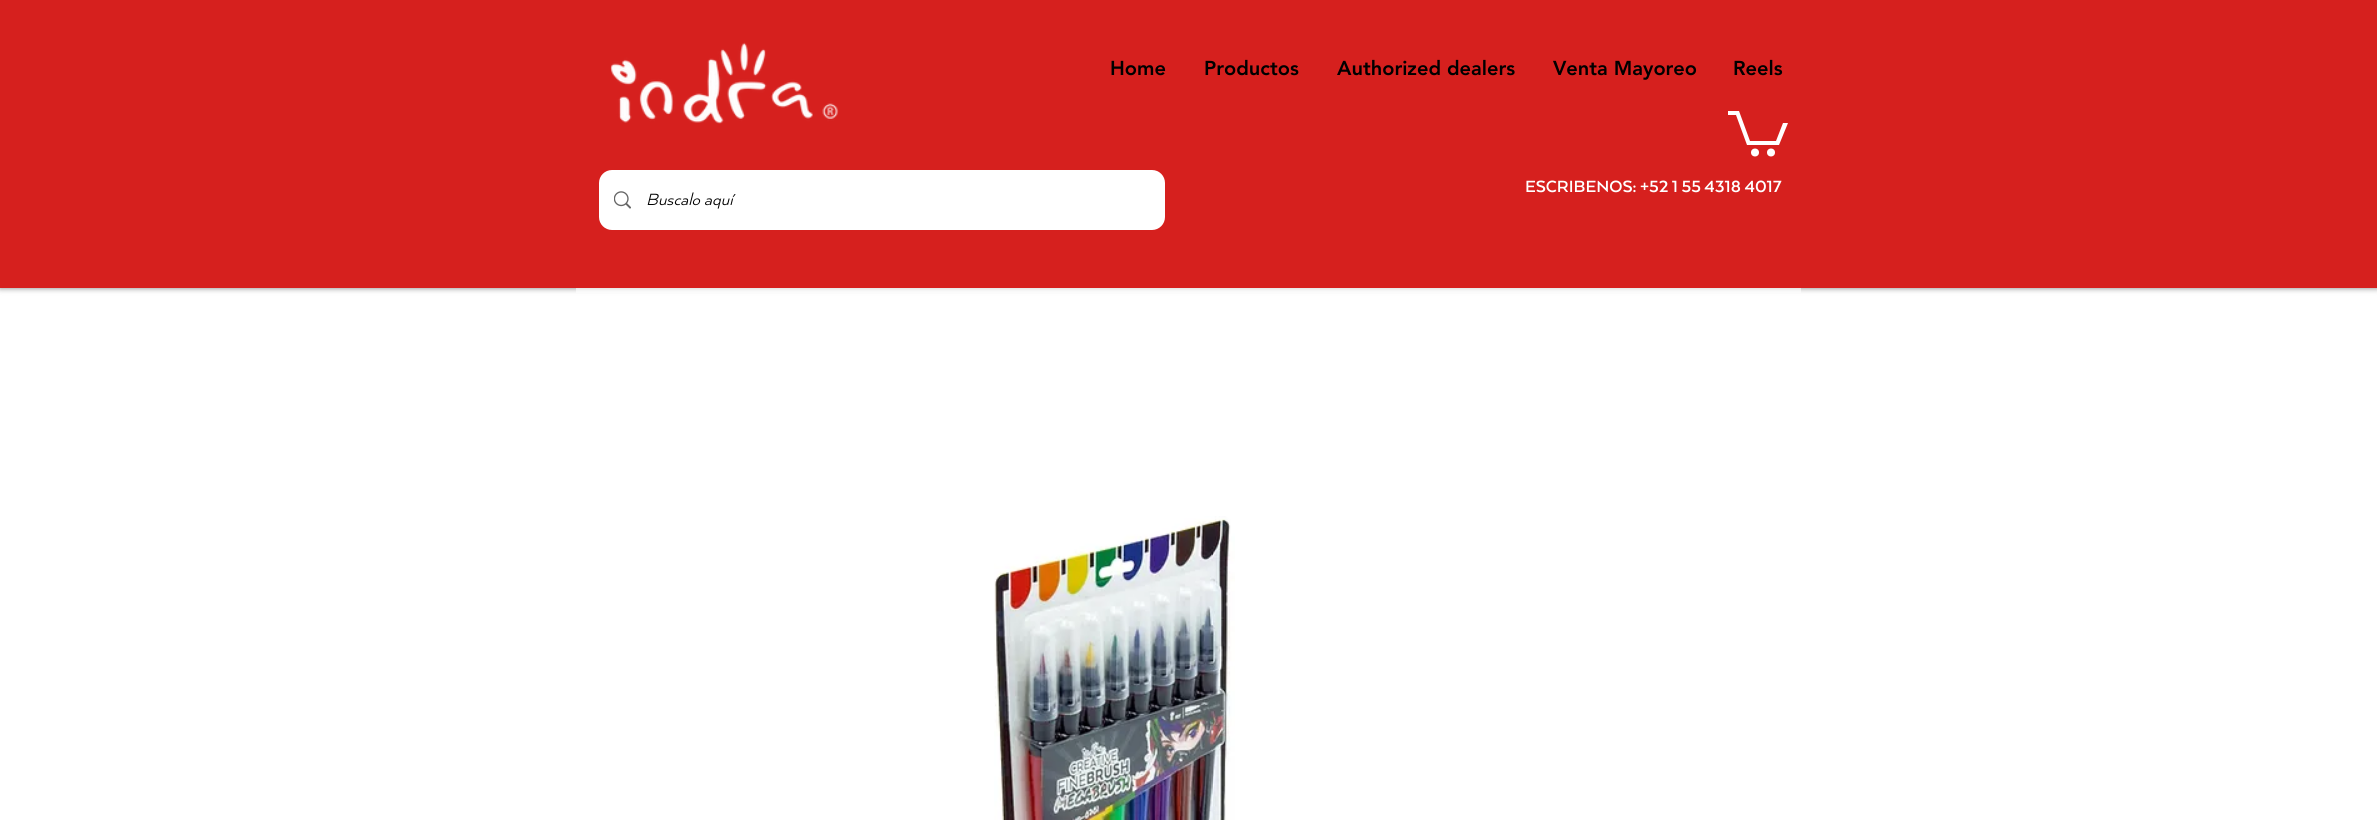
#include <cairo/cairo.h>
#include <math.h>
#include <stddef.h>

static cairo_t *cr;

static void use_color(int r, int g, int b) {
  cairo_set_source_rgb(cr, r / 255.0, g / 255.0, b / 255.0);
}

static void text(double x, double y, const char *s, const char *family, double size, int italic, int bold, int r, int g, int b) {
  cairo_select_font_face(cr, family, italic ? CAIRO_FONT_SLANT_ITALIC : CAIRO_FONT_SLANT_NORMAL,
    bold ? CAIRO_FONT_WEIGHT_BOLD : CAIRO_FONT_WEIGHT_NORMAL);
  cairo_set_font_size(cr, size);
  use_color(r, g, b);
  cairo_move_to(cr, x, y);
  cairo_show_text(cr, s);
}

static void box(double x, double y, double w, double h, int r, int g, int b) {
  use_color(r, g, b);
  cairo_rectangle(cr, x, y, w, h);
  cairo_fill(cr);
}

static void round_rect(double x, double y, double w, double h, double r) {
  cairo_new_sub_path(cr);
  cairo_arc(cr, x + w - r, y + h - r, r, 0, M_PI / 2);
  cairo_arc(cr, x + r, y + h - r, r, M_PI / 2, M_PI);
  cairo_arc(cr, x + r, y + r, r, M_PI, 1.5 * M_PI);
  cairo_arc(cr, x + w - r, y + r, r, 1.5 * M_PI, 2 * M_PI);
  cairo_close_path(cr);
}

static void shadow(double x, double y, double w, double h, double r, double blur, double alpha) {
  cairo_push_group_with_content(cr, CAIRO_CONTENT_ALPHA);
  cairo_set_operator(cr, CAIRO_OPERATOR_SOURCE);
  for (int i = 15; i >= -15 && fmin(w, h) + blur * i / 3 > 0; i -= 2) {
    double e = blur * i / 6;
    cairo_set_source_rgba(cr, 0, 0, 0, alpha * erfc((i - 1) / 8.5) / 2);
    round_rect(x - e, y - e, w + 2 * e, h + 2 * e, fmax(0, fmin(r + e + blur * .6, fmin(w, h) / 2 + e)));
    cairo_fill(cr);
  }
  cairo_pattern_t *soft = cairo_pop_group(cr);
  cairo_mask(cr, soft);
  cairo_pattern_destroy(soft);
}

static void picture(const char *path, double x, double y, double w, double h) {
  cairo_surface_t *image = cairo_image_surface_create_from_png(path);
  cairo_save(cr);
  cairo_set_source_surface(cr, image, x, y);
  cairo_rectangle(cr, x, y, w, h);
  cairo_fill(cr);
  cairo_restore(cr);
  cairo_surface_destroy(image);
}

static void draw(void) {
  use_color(255, 255, 255);
  cairo_paint(cr);
  use_color(0, 0, 0);
  shadow(0, 0, 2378, 288, 0, 3, 0.5);
  box(0, 0, 2377, 288, 214, 32, 30);
  picture("img_01.png", 610, 42, 229, 82);
  use_color(255, 255, 255);
  cairo_new_path(cr);
  cairo_move_to(cr, 1788, 123);
  cairo_line_to(cr, 1779, 145);
  cairo_line_to(cr, 1747, 145);
  cairo_line_to(cr, 1736, 115);
  cairo_line_to(cr, 1728, 115);
  cairo_line_to(cr, 1728, 111);
  cairo_line_to(cr, 1739, 111);
  cairo_line_to(cr, 1750, 141);
  cairo_line_to(cr, 1776, 141);
  cairo_line_to(cr, 1783, 123);
  cairo_fill(cr);
  cairo_arc(cr, 1771, 152.5, 4, 0, 2 * M_PI);
  cairo_fill(cr);
  cairo_arc(cr, 1755, 152.5, 4, 0, 2 * M_PI);
  cairo_fill(cr);
  round_rect(599, 170, 566, 60, 13);
  cairo_fill(cr);
  picture("img_02.png", 614, 191, 17, 18);
  cairo_set_source_rgba(cr, 1, 1, 1, 0.6);
  cairo_rectangle(cr, 576, 288, 1225, 5);
  cairo_fill(cr);
  picture("img_03.png", 994, 516, 241, 304);
  text(1110, 75, "Home", "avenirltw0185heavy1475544 Black", 20, 0, 0, 0, 0, 0);
  text(1204, 75, "Productos", "avenirltw0185heavy1475544 Black", 20, 0, 0, 0, 0, 0);
  text(1337, 75, "Authorized dealers", "avenirltw0185heavy1475544 Black", 20, 0, 0, 0, 0, 0);
  text(1553, 75, "Venta Mayoreo", "avenirltw0185heavy1475544 Black", 20, 0, 0, 0, 0, 0);
  text(1733, 75, "Reels", "avenirltw0185heavy1475544 Black", 20, 0, 0, 0, 0, 0);
  text(1525, 192, "ESCRIBENOS: +52 1 55 4318 4017", "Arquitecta", 18.75, 0, 1, 255, 255, 255);
  text(646, 205, "Buscalo aquí", "Arquitecta", 18.75, 1, 0, 0, 0, 0);
}

int main(void) {
  cairo_surface_t *surface = cairo_image_surface_create(CAIRO_FORMAT_RGB24, 2377, 820);
  cr = cairo_create(surface);
  cairo_font_options_t *options = cairo_font_options_create();
  cairo_font_options_set_hint_metrics(options, CAIRO_HINT_METRICS_OFF);
  cairo_font_options_set_hint_style(options, CAIRO_HINT_STYLE_NONE);
  cairo_set_font_options(cr, options);
  cairo_set_miter_limit(cr, 4);
  draw();
  cairo_surface_write_to_png(surface, "out.png");
  cairo_font_options_destroy(options);
  cairo_destroy(cr);
  cairo_surface_destroy(surface);
  return 0;
}
